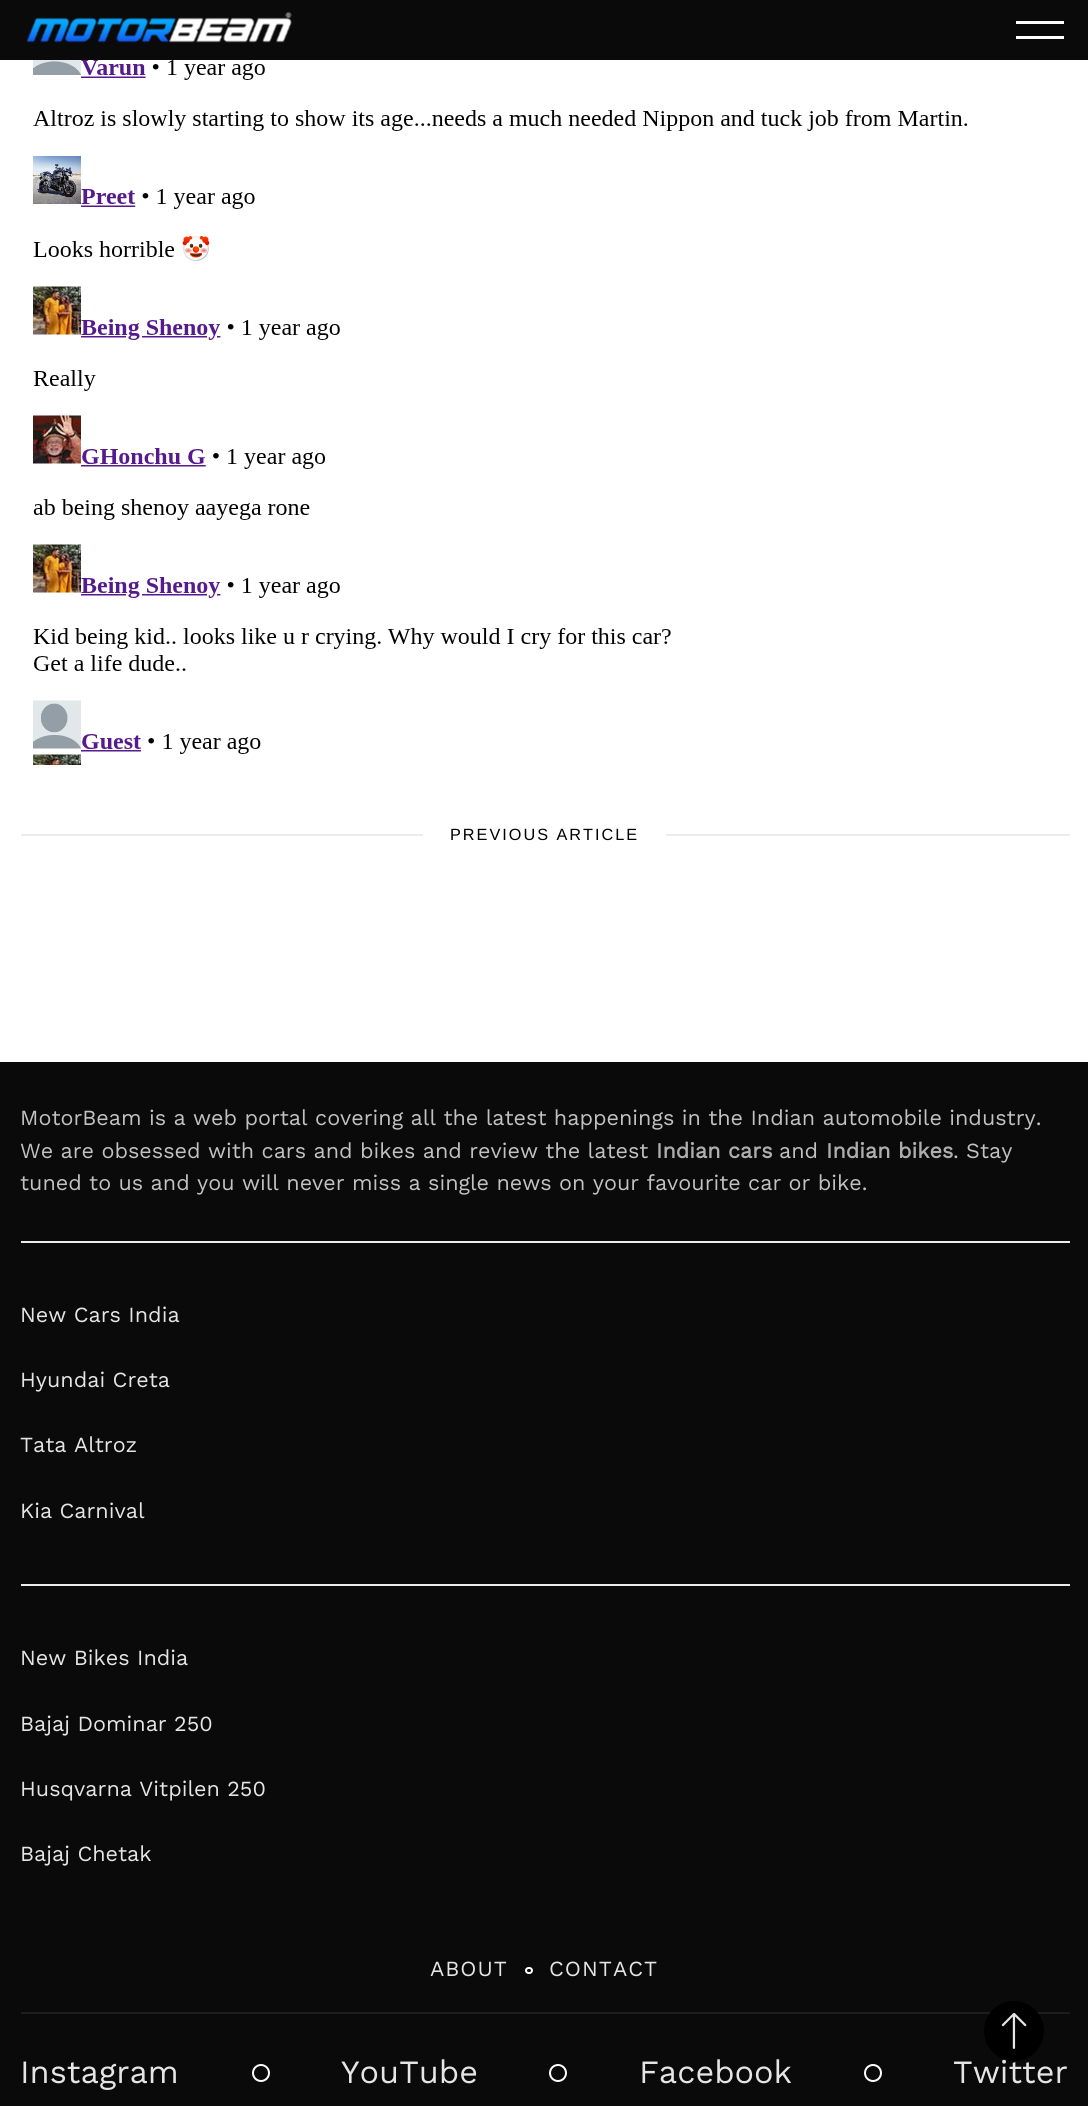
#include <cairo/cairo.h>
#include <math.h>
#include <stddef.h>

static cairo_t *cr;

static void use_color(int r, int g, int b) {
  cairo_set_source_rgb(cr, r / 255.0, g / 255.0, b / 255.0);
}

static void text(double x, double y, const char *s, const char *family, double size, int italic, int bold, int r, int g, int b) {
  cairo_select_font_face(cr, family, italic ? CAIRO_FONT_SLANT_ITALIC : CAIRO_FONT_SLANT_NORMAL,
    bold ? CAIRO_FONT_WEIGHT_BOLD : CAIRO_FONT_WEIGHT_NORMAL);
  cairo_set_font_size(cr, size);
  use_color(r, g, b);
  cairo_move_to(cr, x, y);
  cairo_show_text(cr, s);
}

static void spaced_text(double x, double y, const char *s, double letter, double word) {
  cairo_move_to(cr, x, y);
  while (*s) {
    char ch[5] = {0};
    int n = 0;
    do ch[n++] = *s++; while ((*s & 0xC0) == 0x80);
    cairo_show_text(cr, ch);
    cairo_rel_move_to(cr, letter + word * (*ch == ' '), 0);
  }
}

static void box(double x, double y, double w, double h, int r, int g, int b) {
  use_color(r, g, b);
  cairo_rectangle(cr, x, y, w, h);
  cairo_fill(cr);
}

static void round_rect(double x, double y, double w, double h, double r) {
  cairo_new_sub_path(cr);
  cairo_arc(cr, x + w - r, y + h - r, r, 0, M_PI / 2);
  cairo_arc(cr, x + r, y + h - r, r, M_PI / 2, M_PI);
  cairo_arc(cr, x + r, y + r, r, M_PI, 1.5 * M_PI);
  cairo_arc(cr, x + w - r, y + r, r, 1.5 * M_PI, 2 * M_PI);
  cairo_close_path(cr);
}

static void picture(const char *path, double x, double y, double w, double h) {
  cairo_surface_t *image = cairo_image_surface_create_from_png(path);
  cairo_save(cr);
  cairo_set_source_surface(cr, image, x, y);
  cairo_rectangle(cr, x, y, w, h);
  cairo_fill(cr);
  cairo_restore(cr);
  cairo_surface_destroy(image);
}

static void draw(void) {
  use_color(255, 255, 255);
  cairo_paint(cr);
  box(0, 0, 1088, 60, 10, 10, 10);
  picture("img_01.png", 26, 12, 266, 31);
  box(1016, 21, 48, 3, 255, 255, 255);
  box(1016, 36, 48, 3, 255, 255, 255);
  picture("img_02.png", 33, 60, 935, 705);
  box(21, 834, 402, 2, 237, 237, 237);
  box(666, 834, 404, 2, 237, 237, 237);
  box(0, 1062, 1088, 1044, 10, 10, 10);
  box(21, 1241, 1049, 2, 237, 237, 237);
  box(21, 1584, 1049, 2, 237, 237, 237);
  round_rect(526, 1968, 6, 5, 2.5);
  use_color(255, 255, 255);
  cairo_stroke(cr);
  box(21, 2012, 1049, 2, 28, 28, 28);
  cairo_arc(cr, 261, 2073, 8, 0, 2 * M_PI);
  use_color(255, 255, 255);
  cairo_stroke(cr);
  cairo_arc(cr, 558, 2073, 8, 0, 2 * M_PI);
  cairo_stroke(cr);
  cairo_arc(cr, 873, 2073, 8, 0, 2 * M_PI);
  cairo_stroke(cr);
  cairo_select_font_face(cr, "Liberation Sans", CAIRO_FONT_SLANT_NORMAL, CAIRO_FONT_WEIGHT_NORMAL);
  cairo_set_font_size(cr, 16.25);
  use_color(0, 0, 0);
  spaced_text(450, 840, "PREVIOUS ARTICLE", 2, 0);
  text(20, 1125, "MotorBeam is a web portal covering all the latest happenings in the Indian automobile industry.", "Work Sans", 21.6, 0, 0, 194, 194, 194);
  text(20, 1158, "We are obsessed with cars and bikes and review the latest", "Work Sans", 21.6, 0, 0, 194, 194, 194);
  text(656, 1158, "Indian cars", "Work Sans", 21.6, 0, 1, 174, 174, 174);
  text(779, 1158, "and", "Work Sans", 21.6, 0, 0, 194, 194, 194);
  text(826, 1158, "Indian bikes", "Work Sans", 21.6, 0, 1, 174, 174, 174);
  text(953, 1158, ". Stay", "Work Sans", 21.6, 0, 0, 194, 194, 194);
  text(20, 1190, "tuned to us and you will never miss a single news on your favourite car or bike.", "Work Sans", 21.6, 0, 0, 194, 194, 194);
  text(20, 1322, "New Cars India", "Work Sans", 21.6, 0, 0, 229, 229, 229);
  text(20, 1387, "Hyundai Creta", "Work Sans", 21.6, 0, 0, 229, 229, 229);
  text(20, 1452, "Tata Altroz", "Work Sans", 21.6, 0, 0, 229, 229, 229);
  text(20, 1518, "Kia Carnival", "Work Sans", 21.6, 0, 0, 229, 229, 229);
  text(20, 1665, "New Bikes India", "Work Sans", 21.6, 0, 0, 229, 229, 229);
  text(20, 1731, "Bajaj Dominar 250", "Work Sans", 21.6, 0, 0, 229, 229, 229);
  text(20, 1796, "Husqvarna Vitpilen 250", "Work Sans", 21.6, 0, 0, 229, 229, 229);
  text(20, 1861, "Bajaj Chetak", "Work Sans", 21.6, 0, 0, 229, 229, 229);
  spaced_text(430, 1976, "ABOUT", 1, 0);
  spaced_text(549, 1976, "CONTACT", 1, 0);
  text(20, 2083, "Instagram", "Work Sans", 32.5, 0, 0, 229, 229, 229);
  text(341, 2083, "YouTube", "Work Sans", 32.5, 0, 0, 229, 229, 229);
  text(639, 2083, "Facebook", "Work Sans", 32.5, 0, 0, 229, 229, 229);
  text(953, 2083, "Twitter", "Work Sans", 32.5, 0, 0, 229, 229, 229);
  use_color(0, 0, 0);
  cairo_new_path(cr);
  cairo_arc(cr, 1014, 2031, 30, 0, 2 * M_PI);
  cairo_fill(cr);
  picture("img_03.png", 1001, 2013, 26, 36);
}

int main(void) {
  cairo_surface_t *surface = cairo_image_surface_create(CAIRO_FORMAT_RGB24, 1088, 2106);
  cr = cairo_create(surface);
  cairo_font_options_t *options = cairo_font_options_create();
  cairo_font_options_set_hint_metrics(options, CAIRO_HINT_METRICS_OFF);
  cairo_font_options_set_hint_style(options, CAIRO_HINT_STYLE_NONE);
  cairo_set_font_options(cr, options);
  cairo_set_miter_limit(cr, 4);
  draw();
  cairo_surface_write_to_png(surface, "out.png");
  cairo_font_options_destroy(options);
  cairo_destroy(cr);
  cairo_surface_destroy(surface);
  return 0;
}
